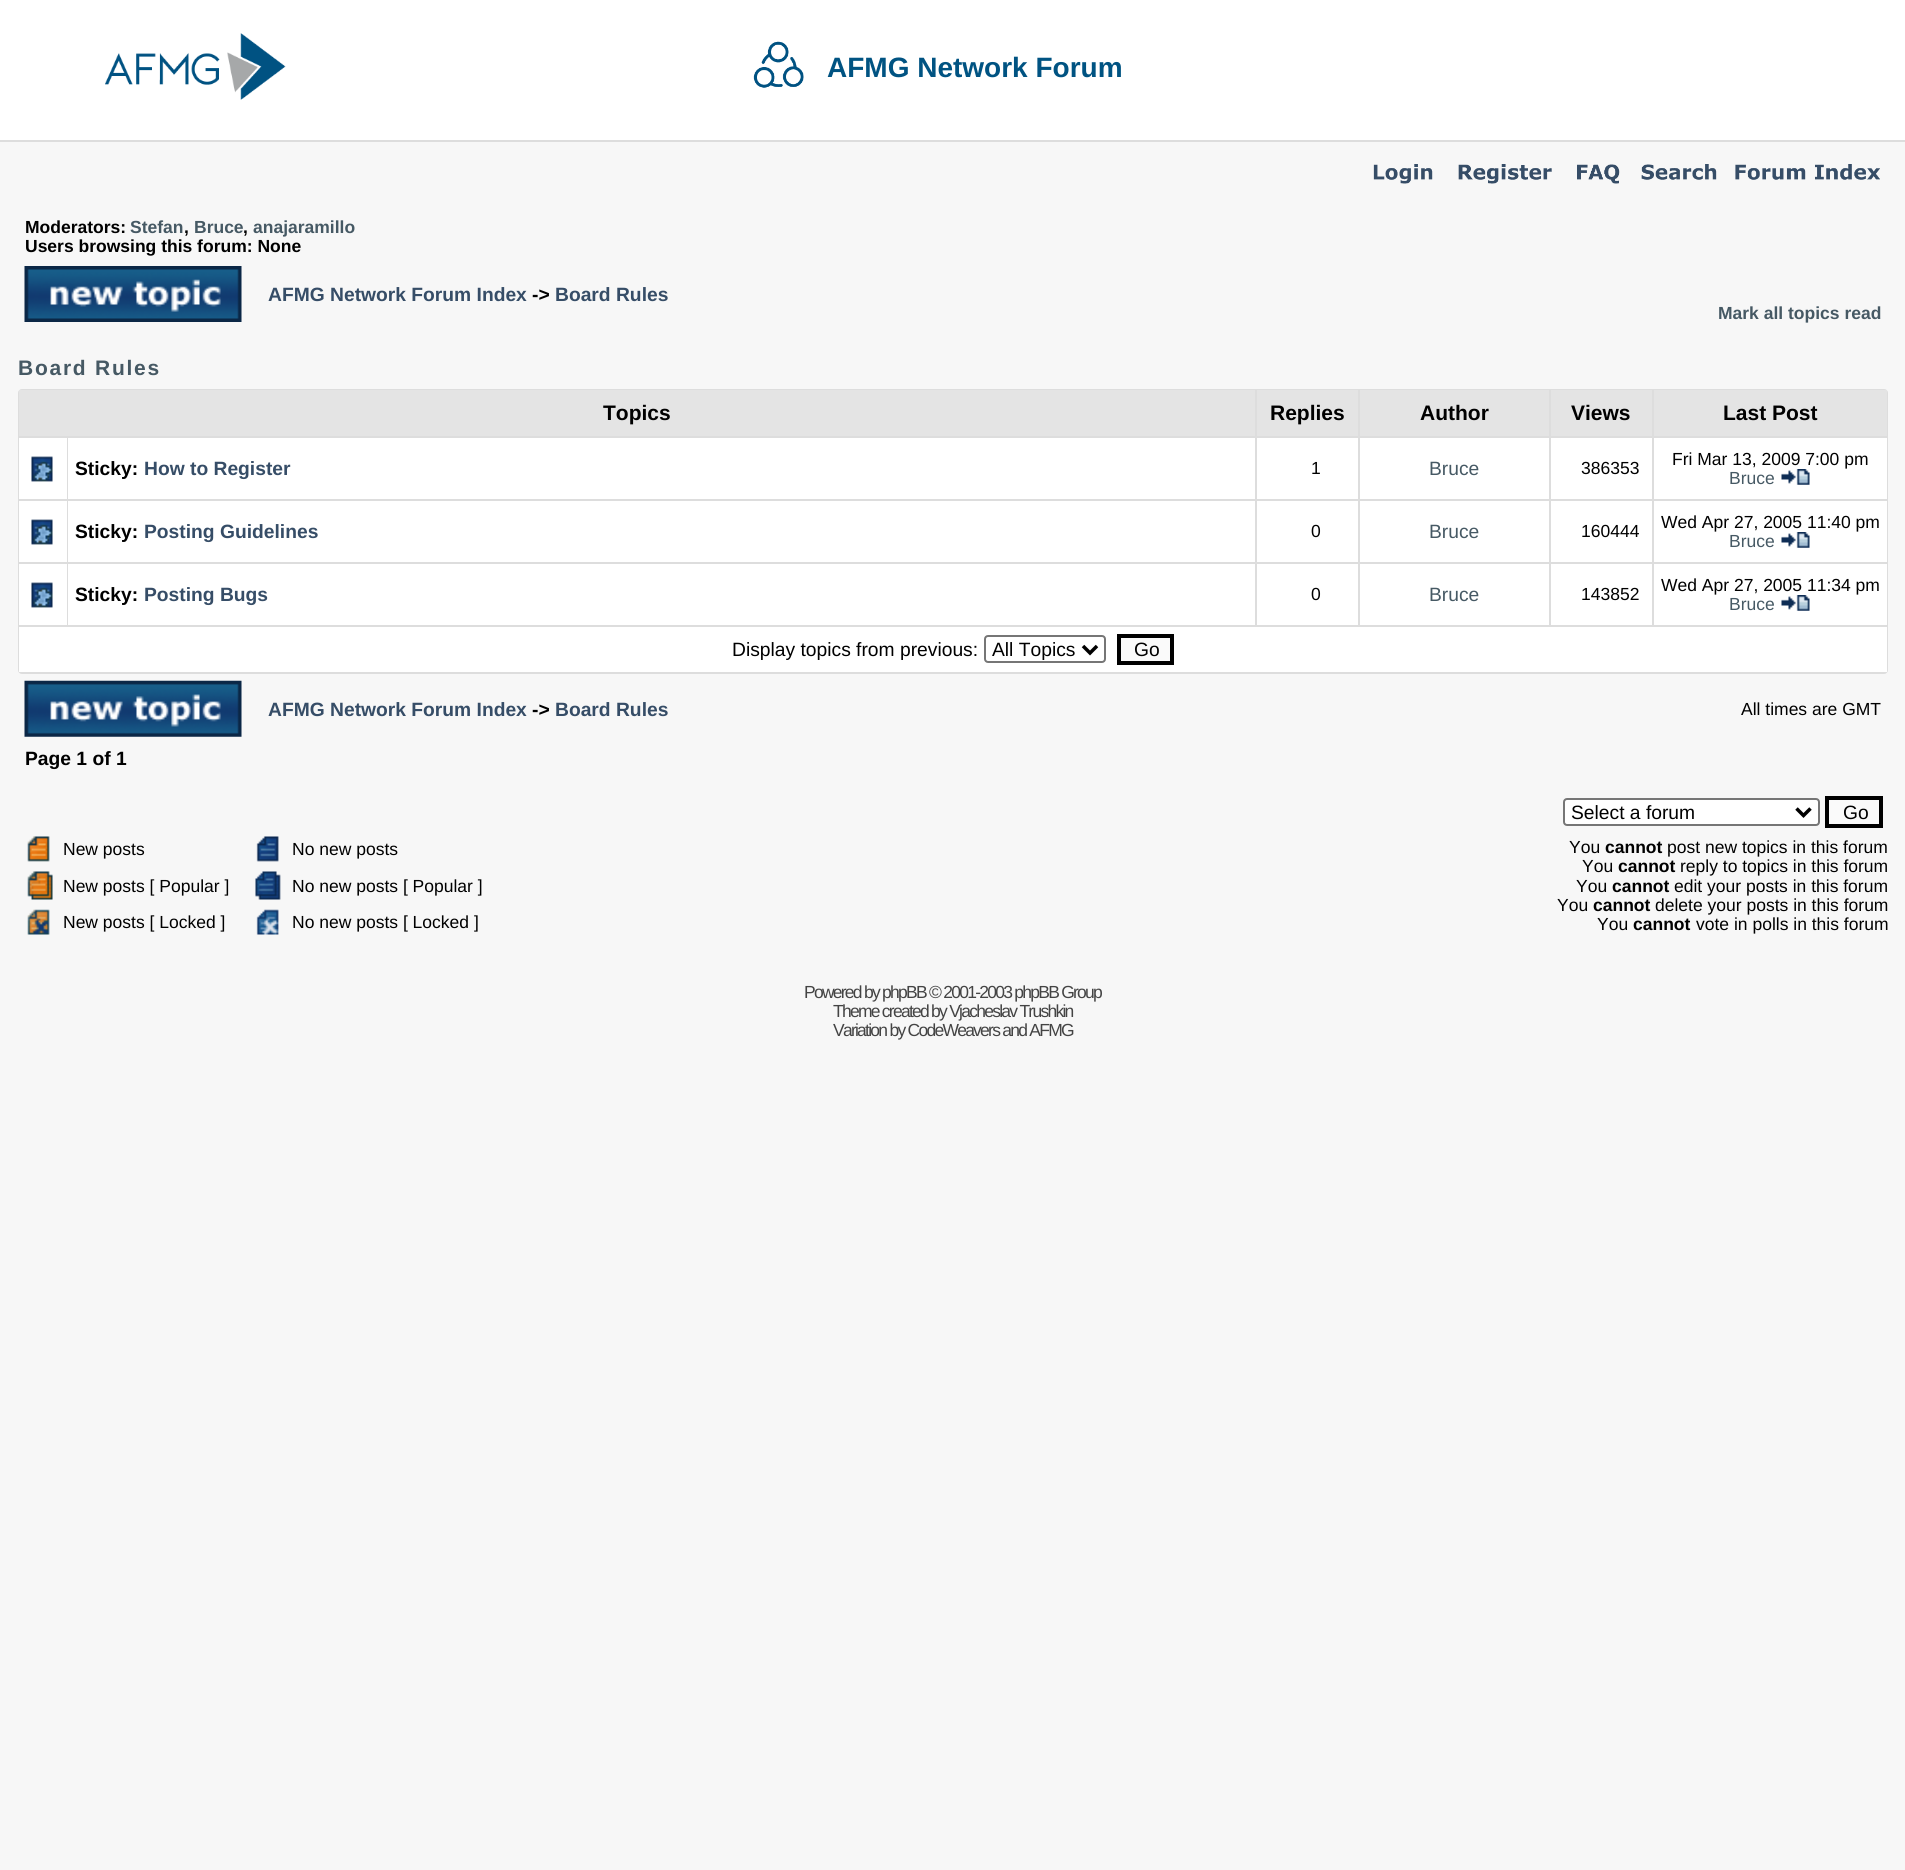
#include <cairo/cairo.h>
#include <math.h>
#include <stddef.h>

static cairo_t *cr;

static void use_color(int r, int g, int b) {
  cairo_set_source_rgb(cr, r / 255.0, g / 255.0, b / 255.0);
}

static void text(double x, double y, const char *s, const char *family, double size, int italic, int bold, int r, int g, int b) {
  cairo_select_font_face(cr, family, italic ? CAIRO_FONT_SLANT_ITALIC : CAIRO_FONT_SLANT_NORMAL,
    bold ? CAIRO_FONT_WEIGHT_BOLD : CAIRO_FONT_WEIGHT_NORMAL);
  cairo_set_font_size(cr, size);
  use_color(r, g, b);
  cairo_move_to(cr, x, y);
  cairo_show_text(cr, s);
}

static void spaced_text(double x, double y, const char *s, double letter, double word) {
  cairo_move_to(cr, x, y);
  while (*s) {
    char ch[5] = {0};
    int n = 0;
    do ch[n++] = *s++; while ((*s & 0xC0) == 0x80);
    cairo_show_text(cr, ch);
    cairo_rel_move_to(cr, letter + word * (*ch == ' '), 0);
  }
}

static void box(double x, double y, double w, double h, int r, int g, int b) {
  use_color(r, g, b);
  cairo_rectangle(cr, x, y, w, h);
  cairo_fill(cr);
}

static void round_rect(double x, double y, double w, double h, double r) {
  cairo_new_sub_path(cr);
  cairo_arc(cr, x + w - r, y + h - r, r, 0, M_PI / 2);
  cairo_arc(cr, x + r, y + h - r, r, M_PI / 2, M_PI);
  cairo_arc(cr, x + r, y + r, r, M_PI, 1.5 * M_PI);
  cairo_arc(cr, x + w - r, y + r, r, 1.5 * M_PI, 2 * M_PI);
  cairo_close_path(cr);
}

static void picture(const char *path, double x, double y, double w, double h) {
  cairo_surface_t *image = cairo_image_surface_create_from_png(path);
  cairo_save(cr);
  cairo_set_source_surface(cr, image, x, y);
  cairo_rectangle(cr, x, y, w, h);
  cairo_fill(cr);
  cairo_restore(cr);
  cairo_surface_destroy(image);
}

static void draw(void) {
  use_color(247, 247, 247);
  cairo_paint(cr);
  box(0, 0, 1905, 140, 255, 255, 255);
  picture("img_01.png", 105, 33, 181, 67);
  picture("img_02.png", 753, 41, 51, 47);
  box(0, 140, 1905, 2, 221, 221, 221);
  picture("img_03.png", 1373, 164, 60, 20);
  picture("img_04.png", 1458, 164, 94, 20);
  picture("img_05.png", 1577, 164, 43, 20);
  picture("img_06.png", 1641, 164, 76, 16);
  picture("img_07.png", 1735, 164, 145, 16);
  picture("img_08.png", 24, 266, 218, 56);
  round_rect(18, 389, 1870, 285, 4);
  cairo_fill(cr);
  box(19, 390, 1236, 46, 228, 228, 228);
  box(1257, 390, 101, 46, 228, 228, 228);
  box(1360, 390, 189, 46, 228, 228, 228);
  box(1551, 390, 101, 46, 228, 228, 228);
  box(1654, 390, 233, 46, 228, 228, 228);
  box(19, 438, 48, 61, 255, 255, 255);
  picture("img_09.png", 31, 456, 22, 26);
  box(68, 438, 1187, 61, 255, 255, 255);
  box(1257, 438, 101, 61, 255, 255, 255);
  box(1360, 438, 189, 61, 255, 255, 255);
  box(1551, 438, 101, 61, 255, 255, 255);
  box(1654, 438, 233, 61, 255, 255, 255);
  picture("img_10.png", 1781, 469, 29, 16);
  box(19, 501, 48, 61, 255, 255, 255);
  picture("img_09.png", 31, 519, 22, 26);
  box(68, 501, 1187, 61, 255, 255, 255);
  box(1257, 501, 101, 61, 255, 255, 255);
  box(1360, 501, 189, 61, 255, 255, 255);
  box(1551, 501, 101, 61, 255, 255, 255);
  box(1654, 501, 233, 61, 255, 255, 255);
  picture("img_10.png", 1781, 532, 29, 16);
  box(19, 564, 48, 61, 255, 255, 255);
  picture("img_09.png", 31, 582, 22, 26);
  box(68, 564, 1187, 61, 255, 255, 255);
  box(1257, 564, 101, 61, 255, 255, 255);
  box(1360, 564, 189, 61, 255, 255, 255);
  box(1551, 564, 101, 61, 255, 255, 255);
  box(1654, 564, 233, 61, 255, 255, 255);
  picture("img_10.png", 1781, 595, 29, 16);
  box(19, 627, 1868, 45, 255, 255, 255);
  round_rect(985, 636, 120, 26, 3);
  use_color(118, 118, 118);
  cairo_stroke(cr);
  cairo_new_path(cr);
  cairo_move_to(cr, 1083, 646);
  cairo_line_to(cr, 1090, 653);
  cairo_line_to(cr, 1097, 646);
  use_color(0, 0, 0);
  cairo_set_line_width(cr, 3.5);
  cairo_stroke(cr);
  use_color(250, 250, 250);
  cairo_rectangle(cr, 1119, 636, 53, 27);
  cairo_fill_preserve(cr);
  use_color(0, 0, 0);
  cairo_set_line_width(cr, 4);
  cairo_stroke(cr);
  picture("img_11.png", 24, 680, 218, 57);
  use_color(255, 255, 255);
  round_rect(1564, 799, 255, 26, 3);
  cairo_fill_preserve(cr);
  use_color(118, 118, 118);
  cairo_set_line_width(cr, 2);
  cairo_stroke(cr);
  cairo_new_path(cr);
  cairo_move_to(cr, 1796.5, 808.5);
  cairo_line_to(cr, 1803.5, 815.5);
  cairo_line_to(cr, 1810.5, 808.5);
  use_color(0, 0, 0);
  cairo_set_line_width(cr, 3.5);
  cairo_stroke(cr);
  use_color(250, 250, 250);
  cairo_rectangle(cr, 1827, 798, 54, 28);
  cairo_fill_preserve(cr);
  use_color(0, 0, 0);
  cairo_set_line_width(cr, 4);
  cairo_stroke(cr);
  picture("img_12.png", 27, 836, 23, 26);
  picture("img_13.png", 256, 836, 23, 26);
  picture("img_14.png", 27, 871, 26, 29);
  picture("img_15.png", 255, 871, 26, 29);
  picture("img_16.png", 27, 909, 23, 26);
  picture("img_17.png", 256, 909, 23, 26);
  text(827, 77, "AFMG Network Forum", "Liberation Sans", 28, 0, 1, 0, 83, 130);
  text(25, 233, "Moderators:", "Liberation Sans", 17.5, 0, 1, 0, 0, 0);
  text(130, 233, "Stefan", "Liberation Sans", 17.5, 0, 1, 70, 89, 100);
  text(184, 233, ",", "Liberation Sans", 17.5, 0, 1, 0, 0, 0);
  text(194, 233, "Bruce", "Liberation Sans", 17.5, 0, 1, 70, 89, 100);
  text(243, 233, ",", "Liberation Sans", 17.5, 0, 1, 0, 0, 0);
  text(253, 233, "anajaramillo", "Liberation Sans", 17.5, 0, 1, 70, 89, 100);
  text(25, 252, "Users browsing this forum: None", "Liberation Sans", 17.5, 0, 1, 0, 0, 0);
  text(268, 301, "AFMG Network Forum Index", "Liberation Sans", 19.25, 0, 1, 54, 77, 103);
  text(532, 301, "->", "Liberation Sans", 19.25, 0, 1, 0, 0, 0);
  text(555, 301, "Board Rules", "Liberation Sans", 19.25, 0, 1, 54, 77, 103);
  text(1718, 319, "Mark all topics read", "Liberation Sans", 17.5, 0, 1, 70, 89, 100);
  cairo_set_font_size(cr, 21);
  spaced_text(18, 375, "Board Rules", 1.75, 0);
  text(603, 420, "Topics", "Liberation Sans", 21, 0, 1, 0, 0, 0);
  text(1270, 420, "Replies", "Liberation Sans", 21, 0, 1, 0, 0, 0);
  text(1420, 420, "Author", "Liberation Sans", 21, 0, 1, 0, 0, 0);
  text(1571, 420, "Views", "Liberation Sans", 21, 0, 1, 0, 0, 0);
  text(1723, 420, "Last Post", "Liberation Sans", 21, 0, 1, 0, 0, 0);
  text(75, 475, "Sticky:", "Liberation Sans", 19.25, 0, 1, 0, 0, 0);
  text(144, 475, "How to Register", "Liberation Sans", 19.25, 0, 1, 54, 77, 103);
  text(1311, 474, "1", "Liberation Sans", 17.5, 0, 0, 0, 0, 0);
  text(1429, 475, "Bruce", "Liberation Sans", 19.25, 0, 0, 70, 89, 100);
  text(1581, 474, "386353", "Liberation Sans", 17.5, 0, 0, 0, 0, 0);
  text(1672, 465, "Fri Mar 13, 2009 7:00 pm", "Liberation Sans", 17.5, 0, 0, 0, 0, 0);
  text(1729, 484, "Bruce", "Liberation Sans", 17.5, 0, 0, 70, 89, 100);
  text(75, 538, "Sticky:", "Liberation Sans", 19.25, 0, 1, 0, 0, 0);
  text(144, 538, "Posting Guidelines", "Liberation Sans", 19.25, 0, 1, 54, 77, 103);
  text(1311, 537, "0", "Liberation Sans", 17.5, 0, 0, 0, 0, 0);
  text(1429, 538, "Bruce", "Liberation Sans", 19.25, 0, 0, 70, 89, 100);
  text(1581, 537, "160444", "Liberation Sans", 17.5, 0, 0, 0, 0, 0);
  text(1661, 528, "Wed Apr 27, 2005 11:40 pm", "Liberation Sans", 17.5, 0, 0, 0, 0, 0);
  text(1729, 547, "Bruce", "Liberation Sans", 17.5, 0, 0, 70, 89, 100);
  text(75, 601, "Sticky:", "Liberation Sans", 19.25, 0, 1, 0, 0, 0);
  text(144, 601, "Posting Bugs", "Liberation Sans", 19.25, 0, 1, 54, 77, 103);
  text(1311, 600, "0", "Liberation Sans", 17.5, 0, 0, 0, 0, 0);
  text(1429, 601, "Bruce", "Liberation Sans", 19.25, 0, 0, 70, 89, 100);
  text(1581, 600, "143852", "Liberation Sans", 17.5, 0, 0, 0, 0, 0);
  text(1661, 591, "Wed Apr 27, 2005 11:34 pm", "Liberation Sans", 17.5, 0, 0, 0, 0, 0);
  text(1729, 610, "Bruce", "Liberation Sans", 17.5, 0, 0, 70, 89, 100);
  text(732, 656, "Display topics from previous:", "Liberation Sans", 19.25, 0, 0, 0, 0, 0);
  text(992, 656, "All Topics", "Liberation Sans", 19.25, 0, 0, 0, 0, 0);
  text(1134, 656, "Go", "Liberation Sans", 19.25, 0, 0, 0, 0, 0);
  text(268, 716, "AFMG Network Forum Index", "Liberation Sans", 19.25, 0, 1, 54, 77, 103);
  text(532, 716, "->", "Liberation Sans", 19.25, 0, 1, 0, 0, 0);
  text(555, 716, "Board Rules", "Liberation Sans", 19.25, 0, 1, 54, 77, 103);
  text(1741, 715, "All times are GMT", "Liberation Sans", 17.5, 0, 0, 0, 0, 0);
  text(25, 765, "Page 1 of 1", "Liberation Sans", 19.25, 0, 1, 0, 0, 0);
  text(1571, 819, "Select a forum", "Liberation Sans", 19.25, 0, 0, 0, 0, 0);
  text(1843, 819, "Go", "Liberation Sans", 19.25, 0, 0, 0, 0, 0);
  text(63, 855, "New posts", "Liberation Sans", 17.5, 0, 0, 0, 0, 0);
  text(292, 855, "No new posts", "Liberation Sans", 17.5, 0, 0, 0, 0, 0);
  text(63, 892, "New posts [ Popular ]", "Liberation Sans", 17.5, 0, 0, 0, 0, 0);
  text(292, 892, "No new posts [ Popular ]", "Liberation Sans", 17.5, 0, 0, 0, 0, 0);
  text(63, 928, "New posts [ Locked ]", "Liberation Sans", 17.5, 0, 0, 0, 0, 0);
  text(292, 928, "No new posts [ Locked ]", "Liberation Sans", 17.5, 0, 0, 0, 0, 0);
  text(1569, 853, "You", "Liberation Sans", 17.5, 0, 0, 0, 0, 0);
  text(1605, 853, "cannot", "Liberation Sans", 17.5, 0, 1, 0, 0, 0);
  text(1667, 853, "post new topics in this forum", "Liberation Sans", 17.5, 0, 0, 0, 0, 0);
  text(1582, 872, "You", "Liberation Sans", 17.5, 0, 0, 0, 0, 0);
  text(1618, 872, "cannot", "Liberation Sans", 17.5, 0, 1, 0, 0, 0);
  text(1680, 872, "reply to topics in this forum", "Liberation Sans", 17.5, 0, 0, 0, 0, 0);
  text(1576, 892, "You", "Liberation Sans", 17.5, 0, 0, 0, 0, 0);
  text(1612, 892, "cannot", "Liberation Sans", 17.5, 0, 1, 0, 0, 0);
  text(1674, 892, "edit your posts in this forum", "Liberation Sans", 17.5, 0, 0, 0, 0, 0);
  text(1557, 911, "You", "Liberation Sans", 17.5, 0, 0, 0, 0, 0);
  text(1593, 911, "cannot", "Liberation Sans", 17.5, 0, 1, 0, 0, 0);
  text(1655, 911, "delete your posts in this forum", "Liberation Sans", 17.5, 0, 0, 0, 0, 0);
  text(1597, 930, "You", "Liberation Sans", 17.5, 0, 0, 0, 0, 0);
  text(1633, 930, "cannot", "Liberation Sans", 17.5, 0, 1, 0, 0, 0);
  text(1696, 930, "vote in polls in this forum", "Liberation Sans", 17.5, 0, 0, 0, 0, 0);
  use_color(68, 68, 68);
  spaced_text(804, 998, "Powered by phpBB © 2001-2003 phpBB Group", -1.75, 0);
  spaced_text(833, 1017, "Theme created by Vjacheslav Trushkin", -1.75, 0);
  spaced_text(833, 1036, "Variation by CodeWeavers and AFMG", -1.75, 0);
}

int main(void) {
  cairo_surface_t *surface = cairo_image_surface_create(CAIRO_FORMAT_RGB24, 1905, 1870);
  cr = cairo_create(surface);
  cairo_font_options_t *options = cairo_font_options_create();
  cairo_font_options_set_hint_metrics(options, CAIRO_HINT_METRICS_OFF);
  cairo_font_options_set_hint_style(options, CAIRO_HINT_STYLE_NONE);
  cairo_set_font_options(cr, options);
  cairo_set_miter_limit(cr, 4);
  draw();
  cairo_surface_write_to_png(surface, "out.png");
  cairo_font_options_destroy(options);
  cairo_destroy(cr);
  cairo_surface_destroy(surface);
  return 0;
}
